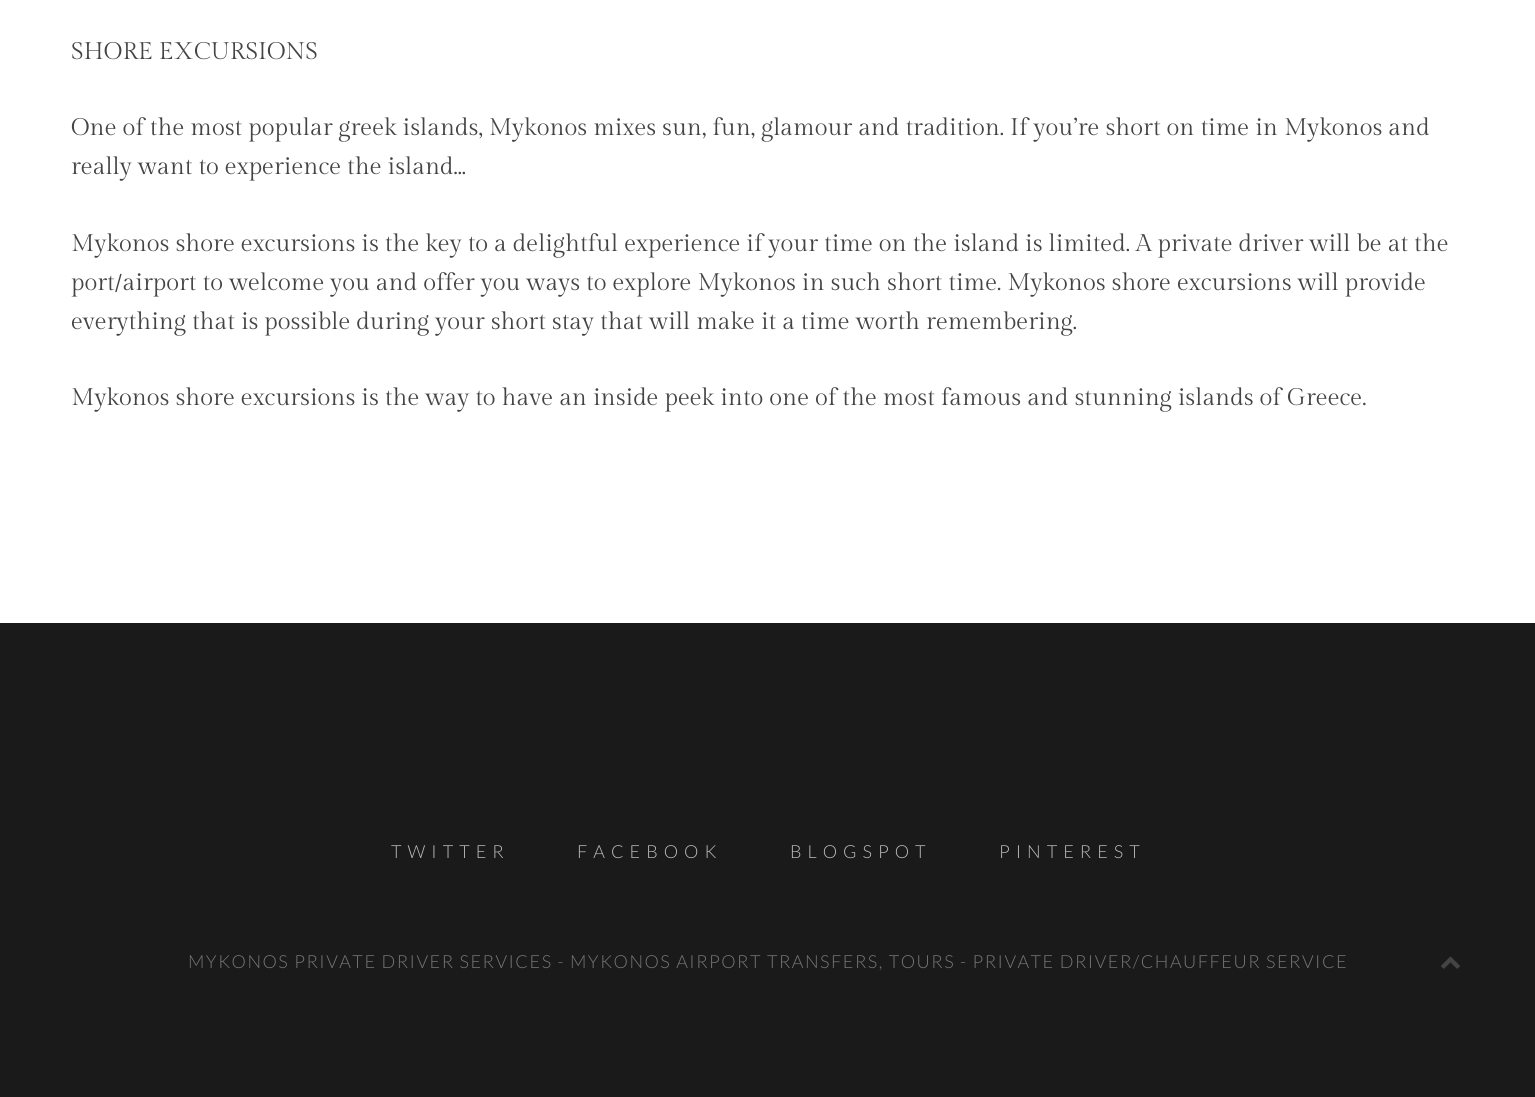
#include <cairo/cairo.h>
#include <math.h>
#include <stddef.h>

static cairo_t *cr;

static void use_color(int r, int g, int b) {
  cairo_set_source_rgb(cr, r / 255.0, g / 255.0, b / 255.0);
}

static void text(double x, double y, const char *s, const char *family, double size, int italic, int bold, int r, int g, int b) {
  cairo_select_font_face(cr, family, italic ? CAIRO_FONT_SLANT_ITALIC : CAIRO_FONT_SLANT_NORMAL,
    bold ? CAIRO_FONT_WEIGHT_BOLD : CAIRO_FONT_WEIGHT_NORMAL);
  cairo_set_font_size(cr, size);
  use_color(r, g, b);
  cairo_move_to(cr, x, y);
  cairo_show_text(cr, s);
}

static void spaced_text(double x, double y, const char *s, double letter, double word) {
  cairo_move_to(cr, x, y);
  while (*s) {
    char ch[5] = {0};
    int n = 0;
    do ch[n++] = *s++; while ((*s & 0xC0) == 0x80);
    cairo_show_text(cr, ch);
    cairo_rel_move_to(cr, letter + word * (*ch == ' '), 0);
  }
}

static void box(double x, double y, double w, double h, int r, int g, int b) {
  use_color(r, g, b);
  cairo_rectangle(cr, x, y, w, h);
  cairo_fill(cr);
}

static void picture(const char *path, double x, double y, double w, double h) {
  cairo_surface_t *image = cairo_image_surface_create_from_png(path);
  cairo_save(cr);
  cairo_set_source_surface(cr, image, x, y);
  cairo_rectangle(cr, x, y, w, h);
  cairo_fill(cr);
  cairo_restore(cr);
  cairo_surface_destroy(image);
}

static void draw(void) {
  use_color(255, 255, 255);
  cairo_paint(cr);
  box(0, 623, 1535, 474, 26, 26, 26);
  picture("img_01.png", 1441, 956, 19, 13);
  text(71, 59, "SHORE EXCURSIONS", "Gilda Display", 24, 0, 0, 68, 68, 68);
  text(71, 135, "One of the most popular greek islands, Mykonos mixes sun, fun, glamour and tradition. If you’re short on time in Mykonos and", "Gilda Display", 24, 0, 0, 68, 68, 68);
  text(71, 174, "really want to experience the island...", "Gilda Display", 24, 0, 0, 68, 68, 68);
  text(71, 251, "Mykonos shore excursions is the key to a delightful experience if your time on the island is limited. A private driver will be at the", "Gilda Display", 24, 0, 0, 68, 68, 68);
  text(71, 290, "port/airport to welcome you and offer you ways to explore Mykonos in such short time. Mykonos shore excursions will provide", "Gilda Display", 24, 0, 0, 68, 68, 68);
  text(71, 329, "everything that is possible during your short stay that will make it a time worth remembering.", "Gilda Display", 24, 0, 0, 68, 68, 68);
  text(71, 405, "Mykonos shore excursions is the way to have an inside peek into one of the most famous and stunning islands of Greece.", "Gilda Display", 24, 0, 0, 68, 68, 68);
  cairo_select_font_face(cr, "Lato Light", CAIRO_FONT_SLANT_NORMAL, CAIRO_FONT_WEIGHT_NORMAL);
  cairo_set_font_size(cr, 18);
  use_color(186, 186, 186);
  spaced_text(391, 858, "TWITTER", 6, 0);
  spaced_text(577, 858, "FACEBOOK", 6, 0);
  spaced_text(790, 858, "BLOGSPOT", 6, 0);
  spaced_text(999, 858, "PINTEREST", 6, 0);
  use_color(118, 118, 118);
  spaced_text(188, 968, "MYKONOS PRIVATE DRIVER SERVICES - MYKONOS AIRPORT TRANSFERS, TOURS - PRIVATE DRIVER/CHAUFFEUR SERVICE", 1.5, 0);
}

int main(void) {
  cairo_surface_t *surface = cairo_image_surface_create(CAIRO_FORMAT_RGB24, 1535, 1097);
  cr = cairo_create(surface);
  cairo_font_options_t *options = cairo_font_options_create();
  cairo_font_options_set_hint_metrics(options, CAIRO_HINT_METRICS_OFF);
  cairo_font_options_set_hint_style(options, CAIRO_HINT_STYLE_NONE);
  cairo_set_font_options(cr, options);
  cairo_set_miter_limit(cr, 4);
  draw();
  cairo_surface_write_to_png(surface, "out.png");
  cairo_font_options_destroy(options);
  cairo_destroy(cr);
  cairo_surface_destroy(surface);
  return 0;
}
